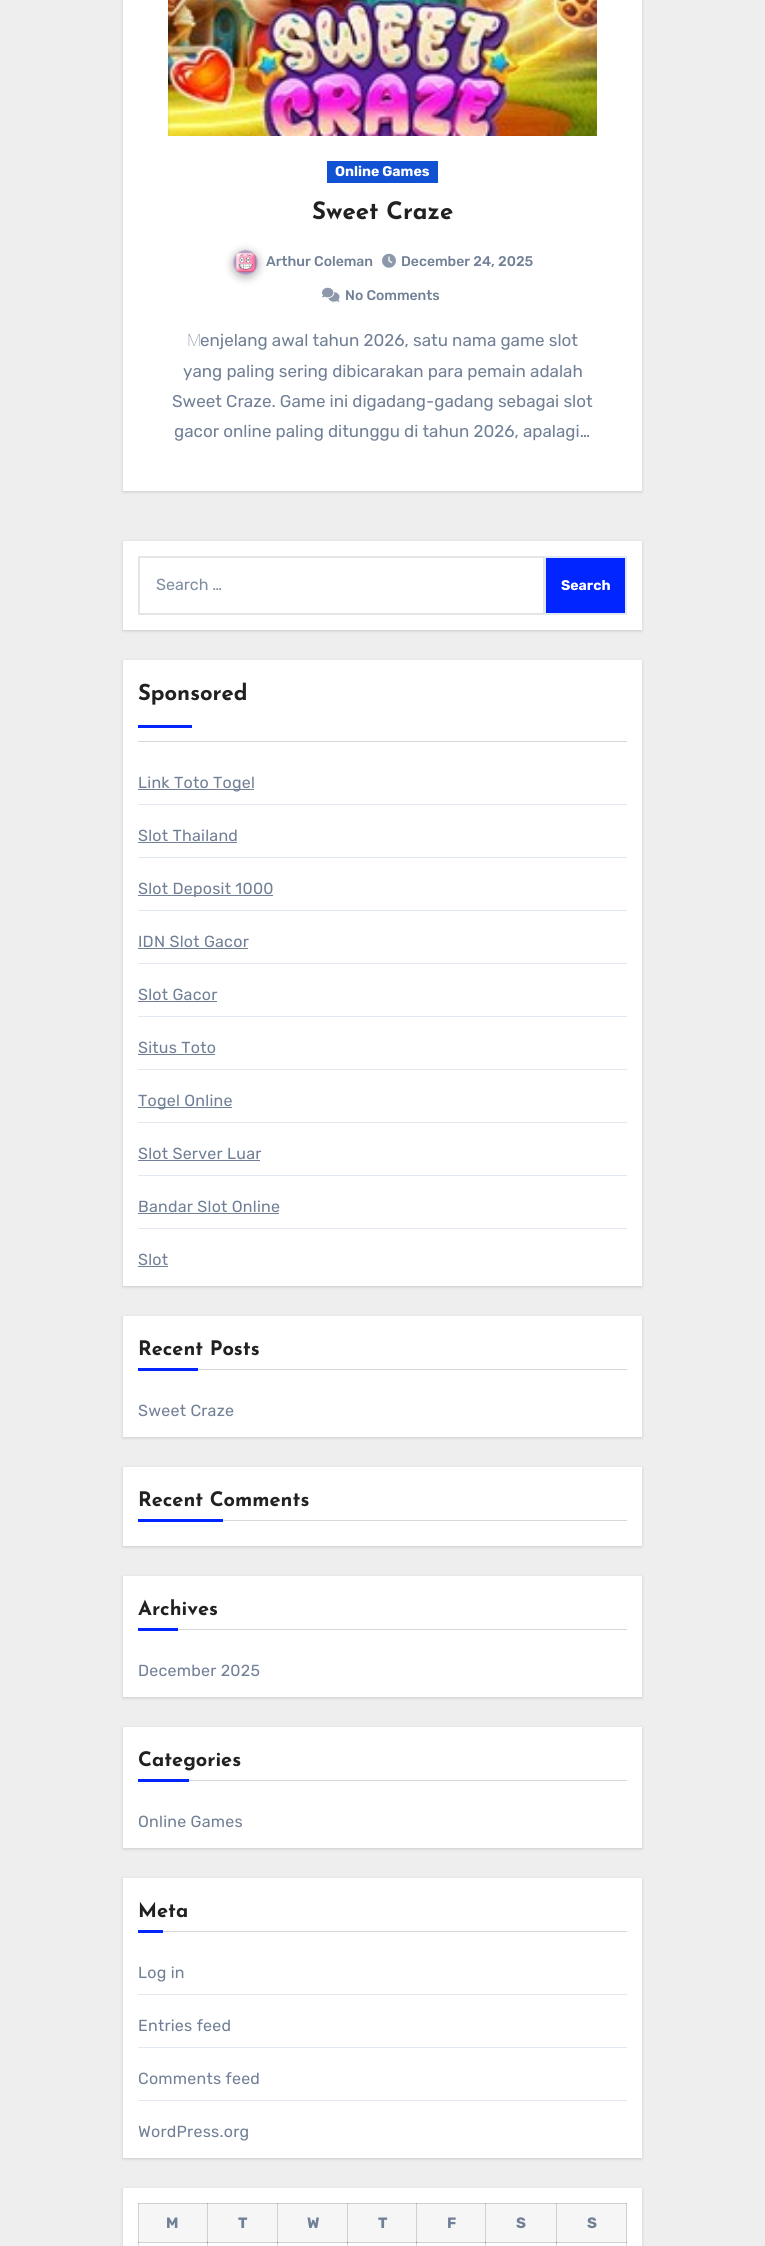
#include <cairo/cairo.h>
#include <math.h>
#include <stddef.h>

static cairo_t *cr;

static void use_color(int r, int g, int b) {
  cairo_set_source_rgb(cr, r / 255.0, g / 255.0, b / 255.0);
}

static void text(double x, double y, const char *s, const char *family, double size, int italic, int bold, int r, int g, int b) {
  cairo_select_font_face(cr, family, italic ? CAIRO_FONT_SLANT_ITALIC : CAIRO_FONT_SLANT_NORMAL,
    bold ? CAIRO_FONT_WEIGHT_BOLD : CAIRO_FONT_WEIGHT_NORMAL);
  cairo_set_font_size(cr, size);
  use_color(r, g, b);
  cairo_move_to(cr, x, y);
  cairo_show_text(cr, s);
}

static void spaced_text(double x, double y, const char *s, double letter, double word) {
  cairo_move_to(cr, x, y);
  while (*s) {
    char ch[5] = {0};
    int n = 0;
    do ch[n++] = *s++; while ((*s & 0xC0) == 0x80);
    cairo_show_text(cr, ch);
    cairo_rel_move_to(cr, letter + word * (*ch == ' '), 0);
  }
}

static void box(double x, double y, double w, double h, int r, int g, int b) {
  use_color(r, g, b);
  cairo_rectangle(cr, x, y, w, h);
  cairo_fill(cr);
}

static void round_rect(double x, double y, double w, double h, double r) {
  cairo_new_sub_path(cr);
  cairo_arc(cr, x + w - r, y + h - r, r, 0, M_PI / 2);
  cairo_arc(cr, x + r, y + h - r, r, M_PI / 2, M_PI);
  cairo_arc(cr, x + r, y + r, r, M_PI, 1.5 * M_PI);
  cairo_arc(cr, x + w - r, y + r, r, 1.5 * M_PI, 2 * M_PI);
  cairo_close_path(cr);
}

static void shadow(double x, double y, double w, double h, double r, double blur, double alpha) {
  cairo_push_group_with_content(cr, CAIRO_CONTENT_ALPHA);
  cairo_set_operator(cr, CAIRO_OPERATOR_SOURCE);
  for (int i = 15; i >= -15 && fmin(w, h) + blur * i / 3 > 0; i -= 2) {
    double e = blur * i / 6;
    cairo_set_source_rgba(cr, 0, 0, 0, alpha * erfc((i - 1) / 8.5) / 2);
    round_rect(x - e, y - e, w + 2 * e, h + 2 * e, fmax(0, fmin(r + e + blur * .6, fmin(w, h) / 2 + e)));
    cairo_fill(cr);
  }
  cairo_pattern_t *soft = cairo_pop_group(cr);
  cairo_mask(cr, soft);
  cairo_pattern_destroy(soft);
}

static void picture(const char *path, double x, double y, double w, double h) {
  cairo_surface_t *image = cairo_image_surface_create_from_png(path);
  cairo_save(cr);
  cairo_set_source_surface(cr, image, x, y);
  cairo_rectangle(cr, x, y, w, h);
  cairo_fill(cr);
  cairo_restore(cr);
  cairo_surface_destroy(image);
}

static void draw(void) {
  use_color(238, 238, 238);
  cairo_paint(cr);
  use_color(0, 0, 0);
  shadow(123, -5, 519, 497, 0, 1.5, 0.15);
  box(123, 0, 519, 491, 255, 255, 255);
  picture("img_01.png", 168, 0, 429, 136);
  box(327, 161, 111, 22, 17, 81, 211);
  use_color(33, 33, 33);
  shadow(232, 251, 27, 27, 13.5, 4, 0.3);
  picture("img_02.png", 233, 250, 25, 25);
  picture("img_03.png", 382, 253, 14, 15);
  picture("img_04.png", 322, 287, 18, 15);
  use_color(0, 0, 0);
  shadow(123, 542, 519, 89, 0, 1.5, 0.15);
  box(123, 541, 519, 89, 255, 255, 255);
  cairo_rectangle(cr, 139, 557, 405, 57);
  use_color(229, 229, 229);
  cairo_stroke(cr);
  use_color(0, 37, 255);
  cairo_rectangle(cr, 545, 557, 81, 57);
  cairo_fill_preserve(cr);
  use_color(226, 232, 240);
  cairo_stroke(cr);
  use_color(0, 0, 0);
  shadow(123, 661, 519, 626, 0, 1.5, 0.15);
  box(123, 660, 519, 626, 255, 255, 255);
  box(138, 741, 489, 1, 215, 215, 215);
  box(138, 725, 54, 3, 0, 37, 255);
  box(138, 804, 489, 1, 226, 232, 240);
  box(138, 789, 116, 1, 113, 128, 150);
  box(138, 857, 489, 1, 226, 232, 240);
  box(138, 842, 99, 1, 113, 128, 150);
  box(138, 910, 489, 1, 226, 232, 240);
  box(138, 895, 135, 1, 113, 128, 150);
  box(138, 963, 489, 1, 226, 232, 240);
  box(138, 948, 110, 1, 113, 128, 150);
  box(138, 1016, 489, 1, 226, 232, 240);
  box(138, 1001, 79, 1, 113, 128, 150);
  box(138, 1069, 489, 1, 226, 232, 240);
  box(138, 1054, 77, 1, 113, 128, 150);
  box(138, 1122, 489, 1, 226, 232, 240);
  box(138, 1107, 94, 1, 113, 128, 150);
  box(138, 1175, 489, 1, 226, 232, 240);
  box(138, 1160, 122, 1, 113, 128, 150);
  box(138, 1228, 489, 1, 226, 232, 240);
  box(138, 1213, 141, 1, 113, 128, 150);
  box(138, 1266, 30, 1, 113, 128, 150);
  use_color(0, 0, 0);
  shadow(123, 1317, 519, 121, 0, 1.5, 0.15);
  box(123, 1316, 519, 121, 255, 255, 255);
  box(198, 1369, 429, 1, 215, 215, 215);
  box(138, 1368, 60, 3, 0, 37, 255);
  use_color(0, 0, 0);
  shadow(123, 1468, 519, 79, 0, 1.5, 0.15);
  box(123, 1467, 519, 79, 255, 255, 255);
  box(223, 1520, 404, 1, 215, 215, 215);
  box(138, 1519, 85, 3, 0, 37, 255);
  use_color(0, 0, 0);
  shadow(123, 1577, 519, 121, 0, 1.5, 0.15);
  box(123, 1576, 519, 121, 255, 255, 255);
  box(178, 1629, 449, 1, 215, 215, 215);
  box(138, 1628, 40, 3, 0, 37, 255);
  use_color(0, 0, 0);
  shadow(123, 1728, 519, 121, 0, 1.5, 0.15);
  box(123, 1727, 519, 121, 255, 255, 255);
  box(189, 1780, 438, 1, 215, 215, 215);
  box(138, 1779, 51, 3, 0, 37, 255);
  use_color(0, 0, 0);
  shadow(123, 1879, 519, 280, 0, 1.5, 0.15);
  box(123, 1878, 519, 280, 255, 255, 255);
  box(163, 1931, 464, 1, 215, 215, 215);
  box(138, 1930, 25, 3, 0, 37, 255);
  box(138, 1994, 489, 1, 226, 232, 240);
  box(138, 2047, 489, 1, 226, 232, 240);
  box(138, 2100, 489, 1, 226, 232, 240);
  use_color(0, 0, 0);
  shadow(123, 2189, 519, 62, 0, 1.5, 0.15);
  box(123, 2188, 519, 58, 255, 255, 255);
  box(207, 2242, 1, 4, 217, 217, 217);
  box(277, 2242, 1, 4, 217, 217, 217);
  box(347, 2242, 1, 4, 217, 217, 217);
  box(416, 2242, 1, 4, 217, 217, 217);
  box(485, 2242, 1, 4, 217, 217, 217);
  box(556, 2242, 1, 4, 217, 217, 217);
  box(138, 2242, 1, 4, 217, 217, 217);
  box(626, 2242, 1, 4, 217, 217, 217);
  box(138, 2242, 69, 1, 209, 209, 209);
  box(138, 2203, 1, 40, 209, 209, 209);
  box(207, 2203, 1, 40, 209, 209, 209);
  box(277, 2203, 1, 40, 209, 209, 209);
  box(347, 2203, 1, 40, 209, 209, 209);
  box(416, 2203, 1, 40, 209, 209, 209);
  box(485, 2203, 1, 40, 209, 209, 209);
  box(556, 2203, 1, 40, 209, 209, 209);
  box(556, 2242, 71, 1, 209, 209, 209);
  box(626, 2203, 1, 40, 209, 209, 209);
  box(138, 2203, 489, 1, 209, 209, 209);
  box(207, 2203, 1, 1, 166, 166, 166);
  box(277, 2203, 1, 1, 166, 166, 166);
  box(347, 2203, 1, 1, 166, 166, 166);
  box(416, 2203, 1, 1, 166, 166, 166);
  box(485, 2203, 1, 1, 166, 166, 166);
  box(556, 2203, 1, 1, 166, 166, 166);
  box(138, 2203, 1, 1, 179, 179, 179);
  box(626, 2203, 1, 1, 179, 179, 179);
  box(139, 2204, 68, 38, 246, 246, 246);
  box(138, 2242, 1, 1, 166, 166, 166);
  box(208, 2204, 69, 38, 246, 246, 246);
  box(207, 2242, 71, 1, 209, 209, 209);
  box(207, 2242, 1, 1, 136, 136, 136);
  box(277, 2242, 1, 1, 136, 136, 136);
  box(278, 2204, 69, 38, 246, 246, 246);
  box(278, 2242, 70, 1, 209, 209, 209);
  box(347, 2242, 1, 1, 136, 136, 136);
  box(348, 2204, 68, 38, 246, 246, 246);
  box(348, 2242, 69, 1, 209, 209, 209);
  box(416, 2242, 1, 1, 136, 136, 136);
  box(417, 2204, 68, 38, 246, 246, 246);
  box(417, 2242, 139, 1, 209, 209, 209);
  box(485, 2242, 1, 1, 136, 136, 136);
  box(486, 2204, 70, 38, 246, 246, 246);
  box(557, 2204, 69, 38, 246, 246, 246);
  box(556, 2242, 1, 1, 136, 136, 136);
  box(626, 2242, 1, 1, 166, 166, 166);
  text(335, 176, "Online Games", "Rubik", 14, 0, 1, 255, 255, 255);
  text(312, 219, "Sweet Craze", "Josefin Sans", 24, 0, 1, 33, 33, 33);
  text(266, 266, "Arthur Coleman", "Rubik Medium", 14, 0, 0, 113, 128, 150);
  text(401, 266, "December 24, 2025", "Rubik Medium", 14, 0, 0, 113, 128, 150);
  text(345, 300, "No Comments", "Rubik Medium", 14, 0, 0, 113, 128, 150);
  text(187, 346, "M", "Noto Sans Thin", 17, 0, 0, 113, 128, 150);
  text(200, 346, "enjelang awal tahun 2026, satu nama game slot", "Rubik Light", 17, 0, 0, 113, 128, 150);
  text(183, 377, "yang paling sering dibicarakan para pemain adalah", "Rubik Light", 17, 0, 0, 113, 128, 150);
  text(172, 407, "Sweet Craze. Game ini digadang-gadang sebagai slot", "Rubik Light", 17, 0, 0, 113, 128, 150);
  text(174, 437, "gacor online paling ditunggu di tahun 2026, apalagi…", "Rubik Light", 17, 0, 0, 113, 128, 150);
  text(156, 590, "Search …", "Rubik Light", 16, 0, 0, 127, 141, 161);
  text(561, 590, "Search", "Rubik", 14, 0, 1, 255, 255, 255);
  text(138, 700, "Sponsored", "Josefin Sans", 22, 0, 1, 33, 33, 33);
  cairo_select_font_face(cr, "Rubik Light", CAIRO_FONT_SLANT_NORMAL, CAIRO_FONT_WEIGHT_NORMAL);
  cairo_set_font_size(cr, 16);
  use_color(113, 128, 150);
  spaced_text(138, 788, "Link Toto Togel", 0.25, 0);
  spaced_text(138, 841, "Slot Thailand", 0.25, 0);
  spaced_text(138, 894, "Slot Deposit 1000", 0.25, 0);
  spaced_text(138, 947, "IDN Slot Gacor", 0.25, 0);
  spaced_text(138, 1000, "Slot Gacor", 0.25, 0);
  spaced_text(138, 1053, "Situs Toto", 0.25, 0);
  spaced_text(138, 1106, "Togel Online", 0.25, 0);
  spaced_text(138, 1159, "Slot Server Luar", 0.25, 0);
  spaced_text(138, 1212, "Bandar Slot Online", 0.25, 0);
  spaced_text(138, 1265, "Slot", 0.25, 0);
  text(138, 1355, "Recent Posts", "Josefin Sans", 20, 0, 1, 33, 33, 33);
  cairo_select_font_face(cr, "Rubik Light", CAIRO_FONT_SLANT_NORMAL, CAIRO_FONT_WEIGHT_NORMAL);
  cairo_set_font_size(cr, 16);
  use_color(113, 128, 150);
  spaced_text(138, 1416, "Sweet Craze", 0.25, 0);
  text(138, 1506, "Recent Comments", "Josefin Sans", 20, 0, 1, 33, 33, 33);
  text(138, 1615, "Archives", "Josefin Sans", 20, 0, 1, 33, 33, 33);
  cairo_select_font_face(cr, "Rubik Light", CAIRO_FONT_SLANT_NORMAL, CAIRO_FONT_WEIGHT_NORMAL);
  cairo_set_font_size(cr, 16);
  use_color(113, 128, 150);
  spaced_text(138, 1676, "December 2025", 0.25, 0);
  text(138, 1766, "Categories", "Josefin Sans", 20, 0, 1, 33, 33, 33);
  cairo_select_font_face(cr, "Rubik Light", CAIRO_FONT_SLANT_NORMAL, CAIRO_FONT_WEIGHT_NORMAL);
  cairo_set_font_size(cr, 16);
  use_color(113, 128, 150);
  spaced_text(138, 1827, "Online Games", 0.25, 0);
  text(138, 1917, "Meta", "Josefin Sans", 20, 0, 1, 33, 33, 33);
  cairo_select_font_face(cr, "Rubik Light", CAIRO_FONT_SLANT_NORMAL, CAIRO_FONT_WEIGHT_NORMAL);
  cairo_set_font_size(cr, 16);
  use_color(113, 128, 150);
  spaced_text(138, 1978, "Log in", 0.25, 0);
  spaced_text(138, 2031, "Entries feed", 0.25, 0);
  spaced_text(138, 2084, "Comments feed", 0.25, 0);
  spaced_text(138, 2137, "WordPress.org", 0.25, 0);
  text(166, 2228, "M", "Rubik", 15, 0, 1, 113, 128, 150);
  text(238, 2228, "T", "Rubik", 15, 0, 1, 113, 128, 150);
  text(307, 2228, "W", "Rubik", 15, 0, 1, 113, 128, 150);
  text(378, 2228, "T", "Rubik", 15, 0, 1, 113, 128, 150);
  text(447, 2228, "F", "Rubik", 15, 0, 1, 113, 128, 150);
  text(516, 2228, "S", "Rubik", 15, 0, 1, 113, 128, 150);
  text(587, 2228, "S", "Rubik", 15, 0, 1, 113, 128, 150);
}

int main(void) {
  cairo_surface_t *surface = cairo_image_surface_create(CAIRO_FORMAT_RGB24, 765, 2246);
  cr = cairo_create(surface);
  cairo_font_options_t *options = cairo_font_options_create();
  cairo_font_options_set_hint_metrics(options, CAIRO_HINT_METRICS_OFF);
  cairo_font_options_set_hint_style(options, CAIRO_HINT_STYLE_NONE);
  cairo_set_font_options(cr, options);
  cairo_set_miter_limit(cr, 4);
  draw();
  cairo_surface_write_to_png(surface, "out.png");
  cairo_font_options_destroy(options);
  cairo_destroy(cr);
  cairo_surface_destroy(surface);
  return 0;
}
